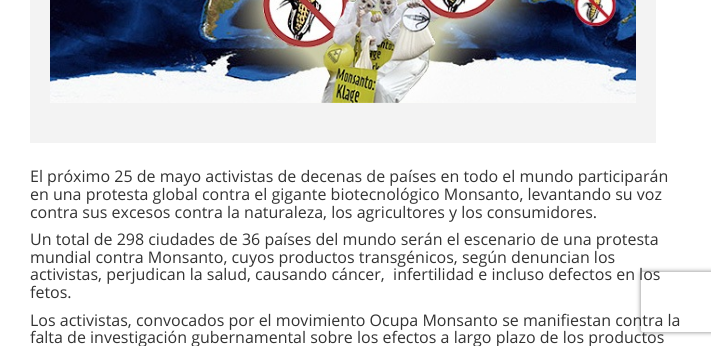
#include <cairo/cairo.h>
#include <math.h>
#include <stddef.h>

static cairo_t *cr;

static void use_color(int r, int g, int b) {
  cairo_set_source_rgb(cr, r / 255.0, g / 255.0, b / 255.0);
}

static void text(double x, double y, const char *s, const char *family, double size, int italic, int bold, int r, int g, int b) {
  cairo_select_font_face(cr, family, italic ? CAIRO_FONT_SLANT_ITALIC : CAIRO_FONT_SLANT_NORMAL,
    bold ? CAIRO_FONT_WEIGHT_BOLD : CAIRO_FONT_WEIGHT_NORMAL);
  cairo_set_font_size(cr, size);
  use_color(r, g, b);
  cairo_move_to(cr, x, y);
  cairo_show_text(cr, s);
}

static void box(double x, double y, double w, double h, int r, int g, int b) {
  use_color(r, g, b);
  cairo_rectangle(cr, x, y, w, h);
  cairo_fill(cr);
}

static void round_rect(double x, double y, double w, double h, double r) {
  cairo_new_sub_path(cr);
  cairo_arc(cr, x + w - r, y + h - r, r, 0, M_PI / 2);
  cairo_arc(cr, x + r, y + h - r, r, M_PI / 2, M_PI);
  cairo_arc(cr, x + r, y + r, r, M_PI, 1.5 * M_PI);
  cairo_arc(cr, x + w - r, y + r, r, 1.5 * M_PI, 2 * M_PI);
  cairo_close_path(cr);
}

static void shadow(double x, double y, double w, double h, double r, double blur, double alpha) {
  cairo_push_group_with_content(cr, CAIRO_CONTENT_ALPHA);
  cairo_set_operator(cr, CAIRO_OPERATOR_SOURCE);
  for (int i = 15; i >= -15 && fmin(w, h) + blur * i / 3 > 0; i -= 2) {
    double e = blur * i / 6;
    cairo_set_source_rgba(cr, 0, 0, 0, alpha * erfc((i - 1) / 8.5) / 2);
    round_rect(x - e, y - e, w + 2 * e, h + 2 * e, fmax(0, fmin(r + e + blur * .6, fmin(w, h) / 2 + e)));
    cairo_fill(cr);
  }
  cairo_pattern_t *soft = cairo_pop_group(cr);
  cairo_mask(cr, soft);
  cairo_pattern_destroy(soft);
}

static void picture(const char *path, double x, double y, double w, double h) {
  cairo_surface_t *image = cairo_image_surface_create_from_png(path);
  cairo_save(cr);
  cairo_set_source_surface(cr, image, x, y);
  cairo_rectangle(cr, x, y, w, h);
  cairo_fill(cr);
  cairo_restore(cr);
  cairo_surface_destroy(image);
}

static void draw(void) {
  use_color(255, 255, 255);
  cairo_paint(cr);
  box(30, 0, 626, 143, 243, 243, 243);
  picture("img_01.png", 50, 0, 586, 103);
  cairo_save(cr);
  cairo_set_fill_rule(cr, CAIRO_FILL_RULE_EVEN_ODD);
  cairo_new_path(cr);
  cairo_move_to(cr, 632, 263);
  cairo_line_to(cr, 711, 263);
  cairo_line_to(cr, 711, 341);
  cairo_line_to(cr, 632, 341);
  cairo_close_path(cr);
  cairo_move_to(cr, 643, 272);
  cairo_line_to(cr, 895, 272);
  cairo_curve_to(cr, 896, 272, 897, 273, 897, 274);
  cairo_line_to(cr, 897, 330);
  cairo_curve_to(cr, 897, 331, 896, 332, 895, 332);
  cairo_line_to(cr, 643, 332);
  cairo_curve_to(cr, 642, 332, 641, 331, 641, 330);
  cairo_line_to(cr, 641, 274);
  cairo_curve_to(cr, 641, 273, 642, 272, 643, 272);
  cairo_close_path(cr);
  cairo_clip(cr);
  use_color(128, 128, 128);
  shadow(641, 272, 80, 60, 2, 2.5, 1);
  cairo_restore(cr);
  text(30, 182, "El próximo 25 de mayo activistas de decenas de países en todo el mundo participarán", "Open Sans", 16, 0, 0, 51, 51, 51);
  text(30, 200, "en una protesta global contra el gigante biotecnológico Monsanto, levantando su voz", "Open Sans", 16, 0, 0, 51, 51, 51);
  text(30, 218, "contra sus excesos contra la naturaleza, los agricultores y los consumidores.", "Open Sans", 16, 0, 0, 51, 51, 51);
  text(30, 245, "Un total de 298 ciudades de 36 países del mundo serán el escenario de una protesta", "Open Sans", 16, 0, 0, 51, 51, 51);
  text(30, 263, "mundial contra Monsanto, cuyos productos transgénicos, según denuncian los", "Open Sans", 16, 0, 0, 51, 51, 51);
  text(30, 280, "activistas, perjudican la salud, causando cáncer,  infertilidad e incluso defectos en los", "Open Sans", 16, 0, 0, 51, 51, 51);
  text(30, 298, "fetos.", "Open Sans", 16, 0, 0, 51, 51, 51);
  text(30, 326, "Los activistas, convocados por el movimiento Ocupa Monsanto se manifiestan contra la", "Open Sans", 16, 0, 0, 51, 51, 51);
  text(30, 343, "falta de investigación gubernamental sobre los efectos a largo plazo de los productos", "Open Sans", 16, 0, 0, 51, 51, 51);
}

int main(void) {
  cairo_surface_t *surface = cairo_image_surface_create(CAIRO_FORMAT_RGB24, 711, 346);
  cr = cairo_create(surface);
  cairo_font_options_t *options = cairo_font_options_create();
  cairo_font_options_set_hint_metrics(options, CAIRO_HINT_METRICS_OFF);
  cairo_font_options_set_hint_style(options, CAIRO_HINT_STYLE_NONE);
  cairo_set_font_options(cr, options);
  cairo_set_miter_limit(cr, 4);
  draw();
  cairo_surface_write_to_png(surface, "out.png");
  cairo_font_options_destroy(options);
  cairo_destroy(cr);
  cairo_surface_destroy(surface);
  return 0;
}
